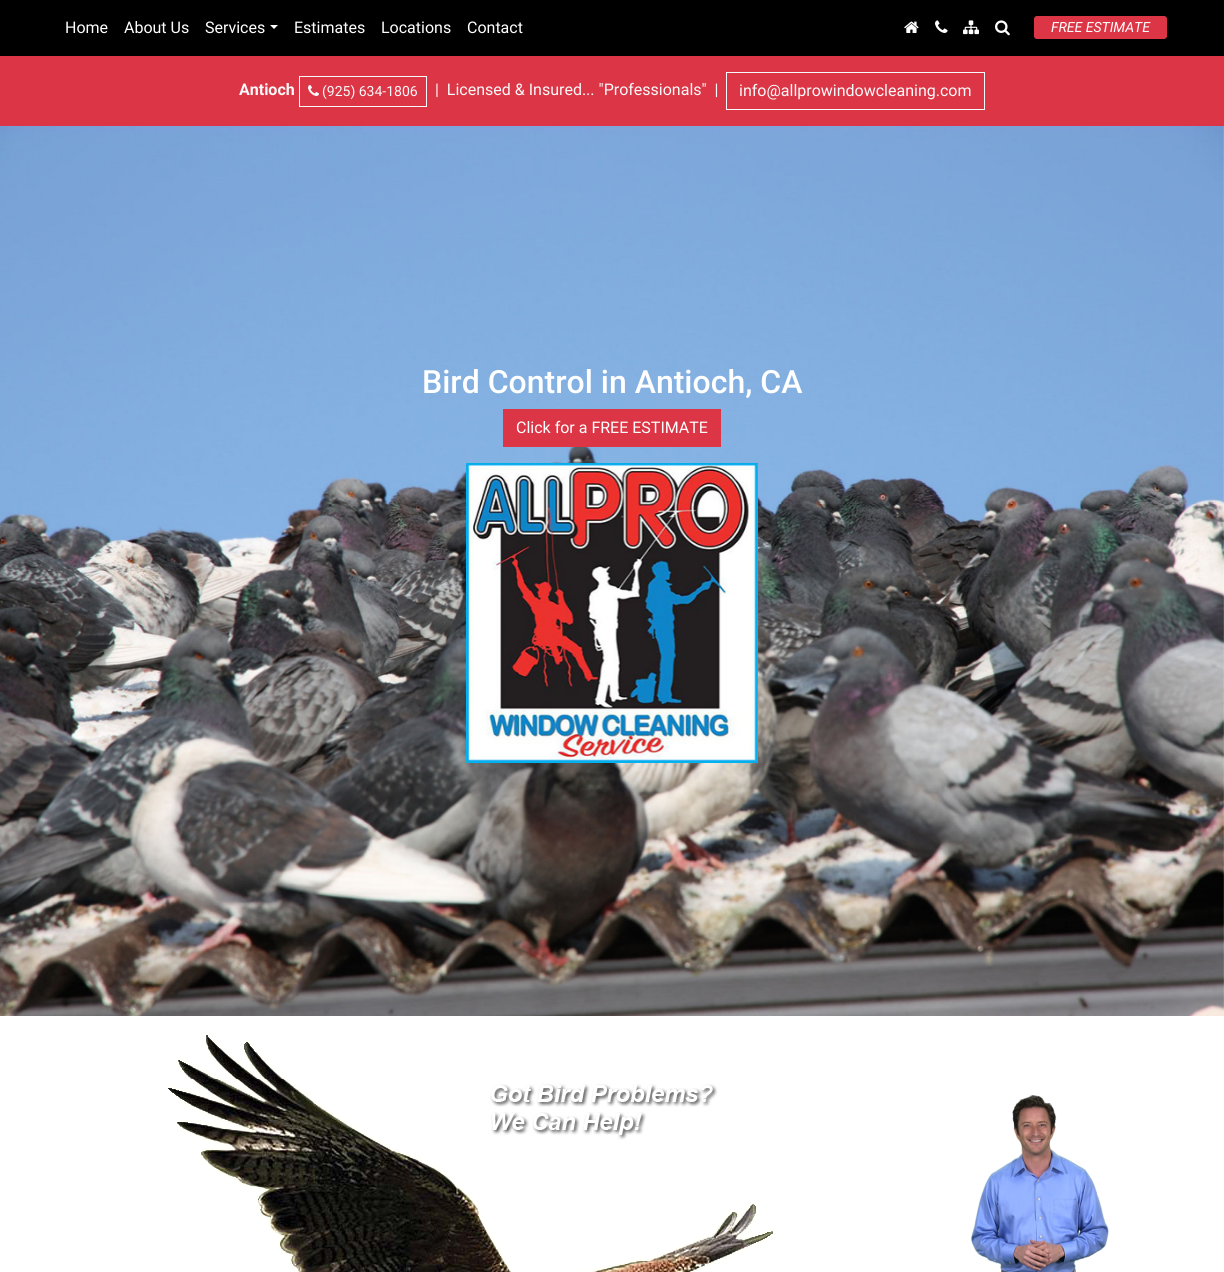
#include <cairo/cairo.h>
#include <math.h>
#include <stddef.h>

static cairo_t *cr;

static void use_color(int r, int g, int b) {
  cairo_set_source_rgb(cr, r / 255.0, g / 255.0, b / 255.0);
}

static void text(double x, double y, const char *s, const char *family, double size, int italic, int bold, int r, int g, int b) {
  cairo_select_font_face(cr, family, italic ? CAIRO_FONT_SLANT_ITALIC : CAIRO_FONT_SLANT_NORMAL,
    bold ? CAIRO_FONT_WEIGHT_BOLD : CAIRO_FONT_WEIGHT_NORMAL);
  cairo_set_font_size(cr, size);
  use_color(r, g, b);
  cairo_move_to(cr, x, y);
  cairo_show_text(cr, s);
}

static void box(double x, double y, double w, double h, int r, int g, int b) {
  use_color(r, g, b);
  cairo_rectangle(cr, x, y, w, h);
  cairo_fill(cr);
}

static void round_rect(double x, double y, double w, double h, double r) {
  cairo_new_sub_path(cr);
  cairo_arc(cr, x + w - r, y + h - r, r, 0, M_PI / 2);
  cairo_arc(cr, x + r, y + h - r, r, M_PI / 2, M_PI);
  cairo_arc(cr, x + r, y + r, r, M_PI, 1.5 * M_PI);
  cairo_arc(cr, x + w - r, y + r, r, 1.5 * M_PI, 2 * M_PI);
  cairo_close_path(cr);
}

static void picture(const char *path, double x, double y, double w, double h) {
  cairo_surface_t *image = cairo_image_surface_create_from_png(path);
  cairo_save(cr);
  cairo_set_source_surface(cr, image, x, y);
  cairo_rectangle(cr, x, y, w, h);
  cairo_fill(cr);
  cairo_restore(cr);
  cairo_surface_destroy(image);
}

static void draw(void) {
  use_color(255, 255, 255);
  cairo_paint(cr);
  box(0, 0, 1224, 56, 0, 0, 0);
  use_color(255, 255, 255);
  cairo_new_path(cr);
  cairo_move_to(cr, 270, 25);
  cairo_line_to(cr, 278, 25);
  cairo_line_to(cr, 274, 29);
  cairo_close_path(cr);
  cairo_fill(cr);
  picture("img_01.png", 904, 21, 15, 12);
  picture("img_02.png", 935, 20, 13, 13);
  picture("img_03.png", 963, 20, 16, 15);
  picture("img_04.png", 995, 20, 15, 16);
  use_color(220, 53, 69);
  round_rect(1034.5, 16.5, 132, 22, 2.5);
  cairo_fill_preserve(cr);
  cairo_set_line_width(cr, 1);
  cairo_stroke(cr);
  box(0, 56, 1224, 70, 220, 53, 69);
  cairo_rectangle(cr, 299.5, 76.5, 127, 30);
  use_color(248, 249, 250);
  cairo_stroke(cr);
  picture("img_05.png", 308, 85, 11, 11);
  cairo_rectangle(cr, 726.5, 72.5, 258, 37);
  cairo_stroke(cr);
  picture("img_06.png", 0, 126, 1224, 890);
  box(503, 409, 218, 38, 220, 53, 69);
  picture("img_07.png", 466, 463, 292, 300);
  picture("img_08.png", 168, 1033, 606, 239);
  picture("img_09.png", 971, 1095, 138, 177);
  text(65, 33, "Home", "Roboto", 16, 0, 0, 255, 255, 255);
  text(124, 33, "About Us", "Roboto", 16, 0, 0, 255, 255, 255);
  text(205, 33, "Services", "Roboto", 16, 0, 0, 255, 255, 255);
  text(294, 33, "Estimates", "Roboto", 16, 0, 0, 255, 255, 255);
  text(381, 33, "Locations", "Roboto", 16, 0, 0, 255, 255, 255);
  text(467, 33, "Contact", "Roboto", 16, 0, 0, 255, 255, 255);
  text(1051, 32, "FREE ESTIMATE", "Roboto", 14, 1, 0, 255, 255, 255);
  text(239, 95, "Antioch", "Roboto", 16, 0, 1, 248, 249, 250);
  text(322, 96, "(925) 634-1806", "Roboto", 14, 0, 0, 248, 249, 250);
  text(435, 95, "|  Licensed & Insured... \"Professionals\"  |", "Roboto", 16, 0, 0, 248, 249, 250);
  text(739, 96, "info@allprowindowcleaning.com", "Roboto", 16, 0, 0, 248, 249, 250);
  text(422, 393, "Bird Control in Antioch, CA", "Roboto Medium", 32, 0, 0, 255, 255, 255);
  text(516, 433, "Click for a FREE ESTIMATE", "Roboto", 16, 0, 0, 255, 255, 255);
}

int main(void) {
  cairo_surface_t *surface = cairo_image_surface_create(CAIRO_FORMAT_RGB24, 1224, 1272);
  cr = cairo_create(surface);
  cairo_font_options_t *options = cairo_font_options_create();
  cairo_font_options_set_hint_metrics(options, CAIRO_HINT_METRICS_OFF);
  cairo_font_options_set_hint_style(options, CAIRO_HINT_STYLE_NONE);
  cairo_set_font_options(cr, options);
  cairo_set_miter_limit(cr, 4);
  draw();
  cairo_surface_write_to_png(surface, "out.png");
  cairo_font_options_destroy(options);
  cairo_destroy(cr);
  cairo_surface_destroy(surface);
  return 0;
}
